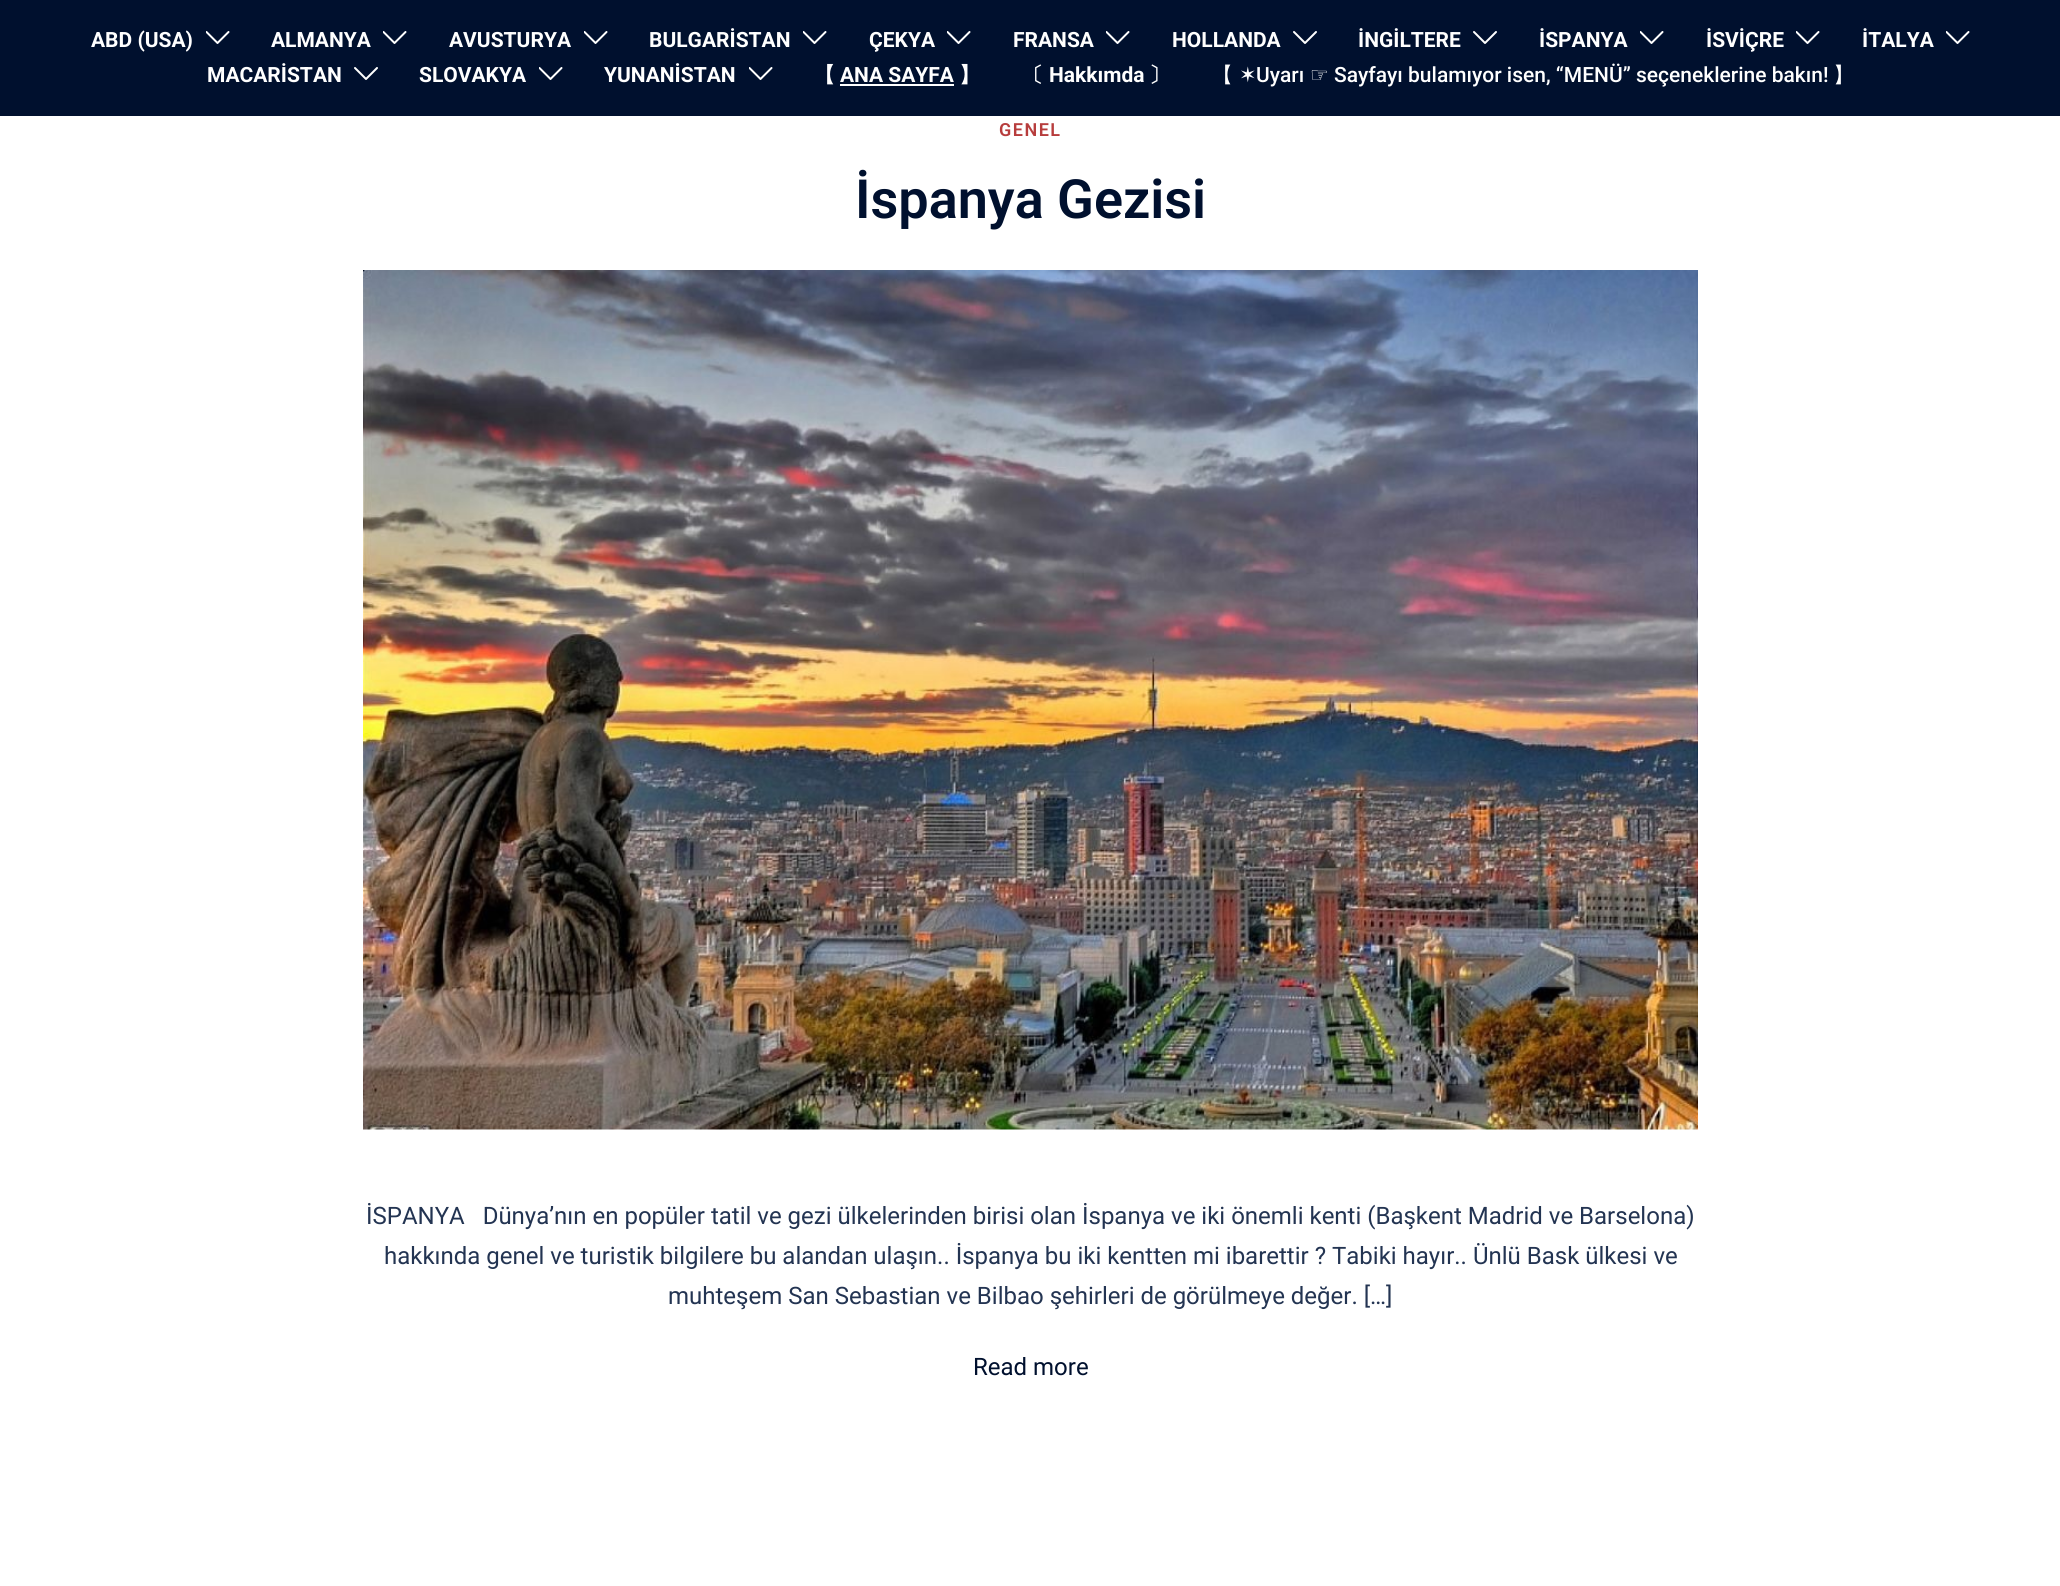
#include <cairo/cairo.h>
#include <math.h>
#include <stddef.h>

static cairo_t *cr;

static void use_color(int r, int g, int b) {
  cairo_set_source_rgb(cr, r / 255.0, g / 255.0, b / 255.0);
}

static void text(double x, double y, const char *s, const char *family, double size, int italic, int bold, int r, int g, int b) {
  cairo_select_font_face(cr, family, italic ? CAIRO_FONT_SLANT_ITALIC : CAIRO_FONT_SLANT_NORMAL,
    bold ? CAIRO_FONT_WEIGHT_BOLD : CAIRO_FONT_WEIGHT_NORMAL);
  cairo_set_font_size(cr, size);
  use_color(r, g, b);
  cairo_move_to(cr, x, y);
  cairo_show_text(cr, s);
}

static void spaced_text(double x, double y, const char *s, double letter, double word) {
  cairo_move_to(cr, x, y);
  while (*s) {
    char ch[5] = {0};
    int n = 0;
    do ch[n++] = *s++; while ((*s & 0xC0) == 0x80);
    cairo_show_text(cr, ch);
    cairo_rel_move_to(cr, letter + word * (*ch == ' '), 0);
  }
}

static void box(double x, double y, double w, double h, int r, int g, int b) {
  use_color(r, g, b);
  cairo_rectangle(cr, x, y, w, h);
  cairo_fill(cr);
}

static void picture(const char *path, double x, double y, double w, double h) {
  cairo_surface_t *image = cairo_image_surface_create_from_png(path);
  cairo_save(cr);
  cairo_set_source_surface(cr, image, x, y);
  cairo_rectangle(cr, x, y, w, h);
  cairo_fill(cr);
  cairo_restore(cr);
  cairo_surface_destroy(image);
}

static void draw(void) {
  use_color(255, 255, 255);
  cairo_paint(cr);
  box(0, 0, 2060, 116, 0, 16, 46);
  picture("img_01.png", 206, 31, 24, 13);
  picture("img_01.png", 383, 31, 24, 13);
  picture("img_01.png", 584, 31, 24, 13);
  picture("img_01.png", 803, 31, 24, 13);
  picture("img_01.png", 947, 31, 24, 13);
  picture("img_01.png", 1106, 31, 24, 13);
  picture("img_02.png", 1293, 31, 24, 13);
  picture("img_02.png", 1473, 31, 24, 13);
  picture("img_01.png", 1640, 31, 24, 13);
  picture("img_01.png", 1796, 31, 24, 13);
  picture("img_01.png", 1946, 31, 24, 13);
  picture("img_02.png", 354, 67, 24, 13);
  picture("img_01.png", 539, 67, 24, 13);
  picture("img_01.png", 749, 67, 24, 13);
  box(840, 84, 114, 2, 255, 255, 255);
  picture("img_03.png", 363, 270, 1335, 860);
  text(91, 47, "ABD (USA)", "Roboto", 21, 0, 1, 255, 255, 255);
  text(271, 47, "ALMANYA", "Roboto", 21, 0, 1, 255, 255, 255);
  text(449, 47, "AVUSTURYA", "Roboto", 21, 0, 1, 255, 255, 255);
  text(649, 47, "BULGARİSTAN", "Roboto", 21, 0, 1, 255, 255, 255);
  text(869, 47, "ÇEKYA", "Roboto", 21, 0, 1, 255, 255, 255);
  text(1013, 47, "FRANSA", "Roboto", 21, 0, 1, 255, 255, 255);
  text(1172, 47, "HOLLANDA", "Roboto", 21, 0, 1, 255, 255, 255);
  text(1358, 47, "İNGİLTERE", "Roboto", 21, 0, 1, 255, 255, 255);
  text(1539, 47, "İSPANYA", "Roboto", 21, 0, 1, 255, 255, 255);
  text(1706, 47, "İSVİÇRE", "Roboto", 21, 0, 1, 255, 255, 255);
  text(1862, 47, "İTALYA", "Roboto", 21, 0, 1, 255, 255, 255);
  text(207, 82, "MACARİSTAN", "Roboto", 21, 0, 1, 255, 255, 255);
  text(419, 82, "SLOVAKYA", "Roboto", 21, 0, 1, 255, 255, 255);
  text(604, 82, "YUNANİSTAN", "Roboto", 21, 0, 1, 255, 255, 255);
  text(814, 82, "【", "WenQuanYi Zen Hei", 21, 0, 1, 255, 255, 255);
  text(840, 82, "ANA SAYFA", "Roboto", 21, 0, 1, 255, 255, 255);
  text(959, 82, "】", "WenQuanYi Zen Hei", 21, 0, 1, 255, 255, 255);
  text(1022, 82, "〔", "WenQuanYi Zen Hei", 21, 0, 1, 255, 255, 255);
  text(1049, 82, "Hakkımda", "Roboto", 21, 0, 1, 255, 255, 255);
  text(1149, 82, "〕", "WenQuanYi Zen Hei", 21, 0, 1, 255, 255, 255);
  text(1212, 82, "【", "WenQuanYi Zen Hei Medium", 21, 0, 0, 255, 255, 255);
  text(1239, 82, "✶", "DejaVu Sans", 21, 0, 0, 255, 255, 255);
  text(1256, 82, "Uyarı", "Roboto Medium", 21, 0, 0, 255, 255, 255);
  text(1310, 82, "☞", "DejaVu Sans", 21, 0, 0, 255, 255, 255);
  text(1334, 82, "Sayfayı bulamıyor isen, “MENÜ” seçeneklerine bakın!", "Roboto Medium", 21, 0, 0, 255, 255, 255);
  text(1833, 82, "】", "WenQuanYi Zen Hei Medium", 21, 0, 0, 255, 255, 255);
  cairo_select_font_face(cr, "Roboto SemiBold", CAIRO_FONT_SLANT_NORMAL, CAIRO_FONT_WEIGHT_NORMAL);
  cairo_set_font_size(cr, 18);
  use_color(183, 61, 61);
  spaced_text(999, 136, "GENEL", 1.5, 0);
  text(855, 218, "İspanya Gezisi", "Roboto SemiBold", 54, 0, 0, 0, 16, 46);
  text(366, 1224, "İSPANYA   Dünya’nın en popüler tatil ve gezi ülkelerinden birisi olan İspanya ve iki önemli kenti (Başkent Madrid ve Barselona)", "Roboto", 24, 0, 0, 35, 52, 82);
  text(384, 1264, "hakkında genel ve turistik bilgilere bu alandan ulaşın.. İspanya bu iki kentten mi ibarettir ? Tabiki hayır.. Ünlü Bask ülkesi ve", "Roboto", 24, 0, 0, 35, 52, 82);
  text(668, 1304, "muhteşem San Sebastian ve Bilbao şehirleri de görülmeye değer. […]", "Roboto", 24, 0, 0, 35, 52, 82);
  text(973, 1375, "Read more", "Roboto", 24, 0, 0, 0, 16, 46);
}

int main(void) {
  cairo_surface_t *surface = cairo_image_surface_create(CAIRO_FORMAT_RGB24, 2060, 1586);
  cr = cairo_create(surface);
  cairo_font_options_t *options = cairo_font_options_create();
  cairo_font_options_set_hint_metrics(options, CAIRO_HINT_METRICS_OFF);
  cairo_font_options_set_hint_style(options, CAIRO_HINT_STYLE_NONE);
  cairo_set_font_options(cr, options);
  cairo_set_miter_limit(cr, 4);
  draw();
  cairo_surface_write_to_png(surface, "out.png");
  cairo_font_options_destroy(options);
  cairo_destroy(cr);
  cairo_surface_destroy(surface);
  return 0;
}
